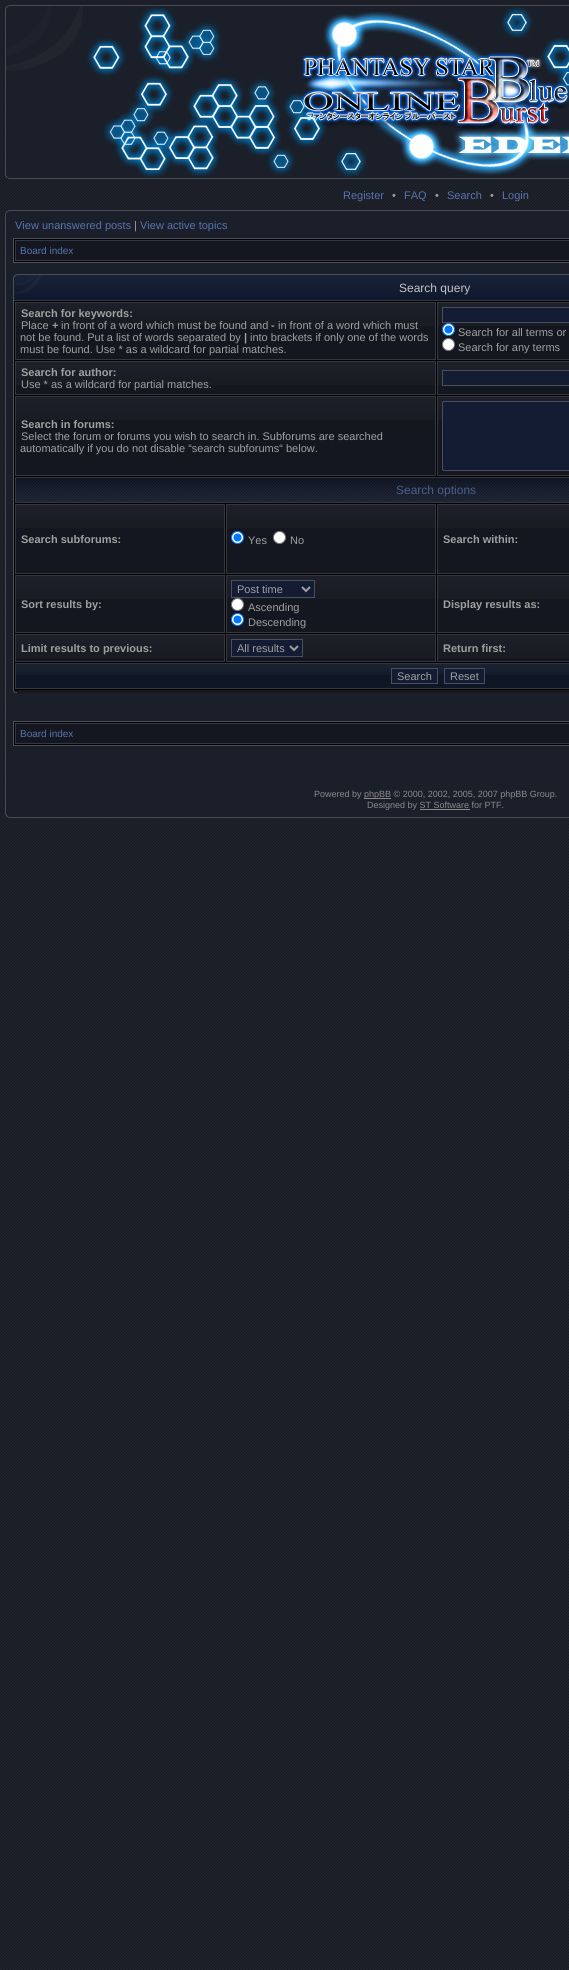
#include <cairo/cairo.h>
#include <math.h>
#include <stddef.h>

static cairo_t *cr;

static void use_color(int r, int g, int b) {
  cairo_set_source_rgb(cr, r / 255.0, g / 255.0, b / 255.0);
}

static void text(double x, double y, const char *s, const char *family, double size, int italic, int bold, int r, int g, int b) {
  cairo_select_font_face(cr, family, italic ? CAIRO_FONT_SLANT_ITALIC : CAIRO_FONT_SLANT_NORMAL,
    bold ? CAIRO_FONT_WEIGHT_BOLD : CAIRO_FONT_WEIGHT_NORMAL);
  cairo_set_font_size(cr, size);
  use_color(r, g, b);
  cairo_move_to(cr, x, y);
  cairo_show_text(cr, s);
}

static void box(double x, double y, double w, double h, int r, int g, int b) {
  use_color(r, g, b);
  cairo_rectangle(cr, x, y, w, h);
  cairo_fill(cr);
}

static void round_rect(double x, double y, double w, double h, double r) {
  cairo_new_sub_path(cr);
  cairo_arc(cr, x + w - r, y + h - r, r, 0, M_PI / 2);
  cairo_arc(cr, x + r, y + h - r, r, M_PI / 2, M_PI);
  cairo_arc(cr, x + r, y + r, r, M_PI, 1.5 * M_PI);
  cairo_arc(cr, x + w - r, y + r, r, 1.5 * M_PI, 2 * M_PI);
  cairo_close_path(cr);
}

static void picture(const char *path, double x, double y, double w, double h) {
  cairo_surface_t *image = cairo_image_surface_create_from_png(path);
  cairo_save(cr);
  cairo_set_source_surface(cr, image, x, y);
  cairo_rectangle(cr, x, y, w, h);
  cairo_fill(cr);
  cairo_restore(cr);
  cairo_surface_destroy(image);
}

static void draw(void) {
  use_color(255, 255, 255);
  cairo_paint(cr);
  picture("img_01.png", 0, 0, 569, 1970);
  box(6, 6, 563, 172, 26, 31, 41);
  box(83, 5, 486, 1, 69, 75, 88);
  box(5, 71, 1, 108, 69, 75, 88);
  box(6, 178, 563, 1, 69, 75, 88);
  picture("img_02.png", 5, 175, 4, 4);
  picture("img_03.png", 5, 5, 78, 66);
  picture("img_04.png", 87, 7, 482, 170);
  box(6, 211, 563, 606, 26, 31, 41);
  box(5, 210, 564, 1, 69, 75, 88);
  box(5, 211, 1, 607, 69, 75, 88);
  box(6, 817, 563, 1, 69, 75, 88);
  picture("img_02.png", 5, 814, 4, 4);
  picture("img_05.png", 5, 210, 5, 4);
  use_color(0, 0, 0);
  cairo_rectangle(cr, 13.5, 238.5, 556, 24);
  cairo_fill_preserve(cr);
  use_color(73, 79, 95);
  cairo_set_line_width(cr, 1);
  cairo_stroke(cr);
  use_color(20, 23, 31);
  cairo_rectangle(cr, 15.5, 240.5, 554, 20);
  cairo_fill_preserve(cr);
  use_color(51, 55, 63);
  cairo_stroke(cr);
  box(13, 690, 556, 3, 24, 24, 24);
  picture("img_06.png", 14, 274, 555, 27);
  picture("img_07.png", 13, 274, 28, 27);
  box(14, 301, 555, 389, 0, 0, 0);
  box(13, 301, 1, 389, 73, 79, 95);
  box(16, 326, 419, 33, 20, 23, 31);
  picture("img_08.png", 16, 303, 419, 23);
  cairo_rectangle(cr, 15.5, 302.5, 420, 57);
  use_color(51, 55, 63);
  cairo_stroke(cr);
  box(438, 326, 131, 33, 20, 23, 31);
  picture("img_09.png", 438, 303, 131, 23);
  cairo_rectangle(cr, 437.5, 302.5, 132, 57);
  use_color(51, 55, 63);
  cairo_stroke(cr);
  use_color(19, 28, 50);
  cairo_rectangle(cr, 442.5, 307.5, 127, 15);
  cairo_fill_preserve(cr);
  use_color(73, 79, 95);
  cairo_stroke(cr);
  use_color(255, 255, 255);
  cairo_arc(cr, 448.5, 329.5, 6, 0, 2 * M_PI);
  cairo_fill_preserve(cr);
  use_color(0, 117, 255);
  cairo_stroke(cr);
  cairo_arc(cr, 448.5, 329.5, 4, 0, 2 * M_PI);
  cairo_fill(cr);
  use_color(255, 255, 255);
  cairo_arc(cr, 448.5, 344.5, 6, 0, 2 * M_PI);
  cairo_fill_preserve(cr);
  use_color(118, 118, 118);
  cairo_stroke(cr);
  box(16, 385, 419, 9, 20, 23, 31);
  picture("img_08.png", 16, 362, 419, 23);
  cairo_rectangle(cr, 15.5, 361.5, 420, 33);
  use_color(51, 55, 63);
  cairo_stroke(cr);
  box(438, 385, 131, 9, 20, 23, 31);
  picture("img_09.png", 438, 362, 131, 23);
  cairo_rectangle(cr, 437.5, 361.5, 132, 33);
  use_color(51, 55, 63);
  cairo_stroke(cr);
  use_color(19, 28, 50);
  cairo_rectangle(cr, 442.5, 370.5, 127, 15);
  cairo_fill_preserve(cr);
  use_color(73, 79, 95);
  cairo_stroke(cr);
  box(16, 420, 419, 55, 20, 23, 31);
  picture("img_08.png", 16, 397, 419, 23);
  cairo_rectangle(cr, 15.5, 396.5, 420, 79);
  use_color(51, 55, 63);
  cairo_stroke(cr);
  box(438, 420, 131, 55, 20, 23, 31);
  picture("img_09.png", 438, 397, 131, 23);
  cairo_rectangle(cr, 437.5, 396.5, 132, 79);
  use_color(51, 55, 63);
  cairo_stroke(cr);
  use_color(19, 28, 50);
  round_rect(442.5, 401.5, 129, 69, 1.5);
  cairo_fill_preserve(cr);
  use_color(73, 79, 95);
  cairo_stroke(cr);
  picture("img_10.png", 16, 478, 553, 24);
  cairo_rectangle(cr, 15.5, 477.5, 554, 25);
  use_color(51, 55, 63);
  cairo_stroke(cr);
  box(16, 528, 208, 45, 20, 23, 31);
  picture("img_11.png", 16, 505, 208, 23);
  cairo_rectangle(cr, 15.5, 504.5, 209, 69);
  use_color(51, 55, 63);
  cairo_stroke(cr);
  box(227, 528, 208, 45, 20, 23, 31);
  picture("img_11.png", 227, 505, 208, 23);
  cairo_rectangle(cr, 226.5, 504.5, 209, 69);
  use_color(51, 55, 63);
  cairo_stroke(cr);
  use_color(255, 255, 255);
  cairo_arc(cr, 237.5, 537.5, 6, 0, 2 * M_PI);
  cairo_fill_preserve(cr);
  use_color(0, 117, 255);
  cairo_stroke(cr);
  cairo_arc(cr, 237.5, 537.5, 4, 0, 2 * M_PI);
  cairo_fill(cr);
  use_color(255, 255, 255);
  cairo_arc(cr, 279.5, 537.5, 6, 0, 2 * M_PI);
  cairo_fill_preserve(cr);
  use_color(118, 118, 118);
  cairo_stroke(cr);
  box(438, 528, 131, 45, 20, 23, 31);
  picture("img_09.png", 438, 505, 131, 23);
  cairo_rectangle(cr, 437.5, 504.5, 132, 69);
  use_color(51, 55, 63);
  cairo_stroke(cr);
  box(16, 599, 208, 33, 20, 23, 31);
  picture("img_11.png", 16, 576, 208, 23);
  cairo_rectangle(cr, 15.5, 575.5, 209, 57);
  use_color(51, 55, 63);
  cairo_stroke(cr);
  box(227, 599, 208, 33, 20, 23, 31);
  picture("img_11.png", 227, 576, 208, 23);
  cairo_rectangle(cr, 226.5, 575.5, 209, 57);
  use_color(51, 55, 63);
  cairo_stroke(cr);
  use_color(19, 28, 50);
  cairo_rectangle(cr, 231.5, 580.5, 83, 17);
  cairo_fill_preserve(cr);
  use_color(73, 79, 95);
  cairo_stroke(cr);
  cairo_new_path(cr);
  cairo_move_to(cr, 302, 587);
  cairo_line_to(cr, 306, 591);
  cairo_line_to(cr, 310, 587);
  use_color(160, 160, 160);
  cairo_set_line_width(cr, 2);
  cairo_stroke(cr);
  use_color(255, 255, 255);
  cairo_arc(cr, 237.5, 604.5, 6, 0, 2 * M_PI);
  cairo_fill_preserve(cr);
  use_color(118, 118, 118);
  cairo_set_line_width(cr, 1);
  cairo_stroke(cr);
  use_color(255, 255, 255);
  cairo_arc(cr, 237.5, 619.5, 6, 0, 2 * M_PI);
  cairo_fill_preserve(cr);
  use_color(0, 117, 255);
  cairo_stroke(cr);
  cairo_arc(cr, 237.5, 619.5, 4, 0, 2 * M_PI);
  cairo_fill(cr);
  box(438, 599, 131, 33, 20, 23, 31);
  picture("img_09.png", 438, 576, 131, 23);
  cairo_rectangle(cr, 437.5, 575.5, 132, 57);
  use_color(51, 55, 63);
  cairo_stroke(cr);
  box(16, 658, 208, 3, 20, 23, 31);
  picture("img_11.png", 16, 635, 208, 23);
  cairo_rectangle(cr, 15.5, 634.5, 209, 27);
  use_color(51, 55, 63);
  cairo_stroke(cr);
  box(227, 658, 208, 3, 20, 23, 31);
  picture("img_11.png", 227, 635, 208, 23);
  cairo_rectangle(cr, 226.5, 634.5, 209, 27);
  use_color(51, 55, 63);
  cairo_stroke(cr);
  use_color(19, 28, 50);
  cairo_rectangle(cr, 231.5, 639.5, 71, 17);
  cairo_fill_preserve(cr);
  use_color(73, 79, 95);
  cairo_stroke(cr);
  cairo_new_path(cr);
  cairo_move_to(cr, 290, 646);
  cairo_line_to(cr, 294, 650);
  cairo_line_to(cr, 298, 646);
  use_color(160, 160, 160);
  cairo_set_line_width(cr, 2);
  cairo_stroke(cr);
  box(438, 658, 131, 3, 20, 23, 31);
  picture("img_09.png", 438, 635, 131, 23);
  cairo_rectangle(cr, 437.5, 634.5, 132, 27);
  use_color(51, 55, 63);
  cairo_set_line_width(cr, 1);
  cairo_stroke(cr);
  box(16, 675, 553, 13, 15, 22, 37);
  picture("img_12.png", 16, 664, 553, 11);
  cairo_rectangle(cr, 15.5, 663.5, 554, 25);
  use_color(51, 55, 63);
  cairo_stroke(cr);
  use_color(19, 28, 50);
  cairo_rectangle(cr, 391.5, 668.5, 46, 15);
  cairo_fill_preserve(cr);
  use_color(73, 79, 95);
  cairo_stroke(cr);
  use_color(19, 28, 50);
  cairo_rectangle(cr, 444.5, 668.5, 40, 15);
  cairo_fill_preserve(cr);
  use_color(73, 79, 95);
  cairo_stroke(cr);
  picture("img_13.png", 13, 690, 4, 3);
  use_color(0, 0, 0);
  cairo_rectangle(cr, 13.5, 721.5, 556, 24);
  cairo_fill_preserve(cr);
  use_color(73, 79, 95);
  cairo_stroke(cr);
  use_color(20, 23, 31);
  cairo_rectangle(cr, 15.5, 723.5, 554, 20);
  cairo_fill_preserve(cr);
  use_color(51, 55, 63);
  cairo_stroke(cr);
  box(364, 798, 27, 1, 138, 138, 138);
  box(420, 809, 50, 1, 138, 138, 138);
  text(343, 199, "Register", "Liberation Sans", 11, 0, 0, 88, 115, 176);
  text(392, 199, "•", "Liberation Sans", 11, 0, 0, 160, 160, 160);
  text(404, 199, "FAQ", "Liberation Sans", 11, 0, 0, 88, 115, 176);
  text(435, 199, "•", "Liberation Sans", 11, 0, 0, 160, 160, 160);
  text(447, 199, "Search", "Liberation Sans", 11, 0, 0, 88, 115, 176);
  text(490, 199, "•", "Liberation Sans", 11, 0, 0, 160, 160, 160);
  text(502, 199, "Login", "Liberation Sans", 11, 0, 0, 88, 115, 176);
  text(15, 229, "View unanswered posts", "Liberation Sans", 11, 0, 0, 88, 115, 176);
  text(134, 229, "|", "Liberation Sans", 11, 0, 0, 160, 160, 160);
  text(140, 229, "View active topics", "Liberation Sans", 11, 0, 0, 88, 115, 176);
  text(20, 254, "Board index", "Liberation Sans", 10, 0, 0, 88, 115, 176);
  text(399, 292, "Search query", "Liberation Sans", 12, 0, 0, 196, 196, 196);
  text(21, 317, "Search for keywords:", "Liberation Sans", 11, 0, 1, 160, 160, 160);
  text(21, 329, "Place", "Liberation Sans", 11, 0, 0, 160, 160, 160);
  text(52, 329, "+", "Liberation Sans", 11, 0, 1, 160, 160, 160);
  text(61, 329, "in front of a word which must be found and", "Liberation Sans", 11, 0, 0, 160, 160, 160);
  text(271, 329, "-", "Liberation Sans", 11, 0, 1, 160, 160, 160);
  text(278, 329, "in front of a word which must", "Liberation Sans", 11, 0, 0, 160, 160, 160);
  text(20, 341, "not be found. Put a list of words separated by", "Liberation Sans", 11, 0, 0, 160, 160, 160);
  text(244, 341, "|", "Liberation Sans", 11, 0, 1, 160, 160, 160);
  text(250, 341, "into brackets if only one of the words", "Liberation Sans", 11, 0, 0, 160, 160, 160);
  text(20, 353, "must be found. Use * as a wildcard for partial matches.", "Liberation Sans", 11, 0, 0, 160, 160, 160);
  text(458, 336, "Search for all terms or", "Liberation Sans", 11, 0, 0, 160, 160, 160);
  text(458, 351, "Search for any terms", "Liberation Sans", 11, 0, 0, 160, 160, 160);
  text(21, 376, "Search for author:", "Liberation Sans", 11, 0, 1, 160, 160, 160);
  text(21, 388, "Use * as a wildcard for partial matches.", "Liberation Sans", 11, 0, 0, 160, 160, 160);
  text(21, 428, "Search in forums:", "Liberation Sans", 11, 0, 1, 160, 160, 160);
  text(21, 440, "Select the forum or forums you wish to search in. Subforums are searched", "Liberation Sans", 11, 0, 0, 160, 160, 160);
  text(20, 452, "automatically if you do not disable “search subforums“ below.", "Liberation Sans", 11, 0, 0, 160, 160, 160);
  text(396, 494, "Search options", "Liberation Sans", 12, 0, 0, 77, 95, 135);
  text(21, 543, "Search subforums:", "Liberation Sans", 11, 0, 1, 160, 160, 160);
  text(248, 544, "Yes", "Liberation Sans", 11, 0, 0, 160, 160, 160);
  text(290, 544, "No", "Liberation Sans", 11, 0, 0, 160, 160, 160);
  text(443, 543, "Search within:", "Liberation Sans", 11, 0, 1, 160, 160, 160);
  text(21, 608, "Sort results by:", "Liberation Sans", 11, 0, 1, 160, 160, 160);
  text(237, 593, "Post time", "Liberation Sans", 11, 0, 0, 160, 160, 160);
  text(248, 611, "Ascending", "Liberation Sans", 11, 0, 0, 160, 160, 160);
  text(248, 626, "Descending", "Liberation Sans", 11, 0, 0, 160, 160, 160);
  text(443, 608, "Display results as:", "Liberation Sans", 11, 0, 1, 160, 160, 160);
  text(21, 652, "Limit results to previous:", "Liberation Sans", 11, 0, 1, 160, 160, 160);
  text(237, 652, "All results", "Liberation Sans", 11, 0, 0, 160, 160, 160);
  text(443, 652, "Return first:", "Liberation Sans", 11, 0, 1, 160, 160, 160);
  text(397, 680, "Search", "Liberation Sans", 11, 0, 0, 160, 160, 160);
  text(450, 680, "Reset", "Liberation Sans", 11, 0, 0, 160, 160, 160);
  text(20, 737, "Board index", "Liberation Sans", 10, 0, 0, 88, 115, 176);
  text(314, 797, "Powered by", "Liberation Sans", 9, 0, 0, 138, 138, 138);
  text(364, 797, "phpBB © 2000, 2002, 2005, 2007 phpBB Group.", "Liberation Sans", 9, 0, 0, 138, 138, 138);
  text(367, 808, "Designed by ST Software for PTF.", "Liberation Sans", 9, 0, 0, 138, 138, 138);
}

int main(void) {
  cairo_surface_t *surface = cairo_image_surface_create(CAIRO_FORMAT_RGB24, 569, 1970);
  cr = cairo_create(surface);
  cairo_font_options_t *options = cairo_font_options_create();
  cairo_font_options_set_hint_metrics(options, CAIRO_HINT_METRICS_OFF);
  cairo_font_options_set_hint_style(options, CAIRO_HINT_STYLE_NONE);
  cairo_set_font_options(cr, options);
  cairo_set_miter_limit(cr, 4);
  draw();
  cairo_surface_write_to_png(surface, "out.png");
  cairo_font_options_destroy(options);
  cairo_destroy(cr);
  cairo_surface_destroy(surface);
  return 0;
}
